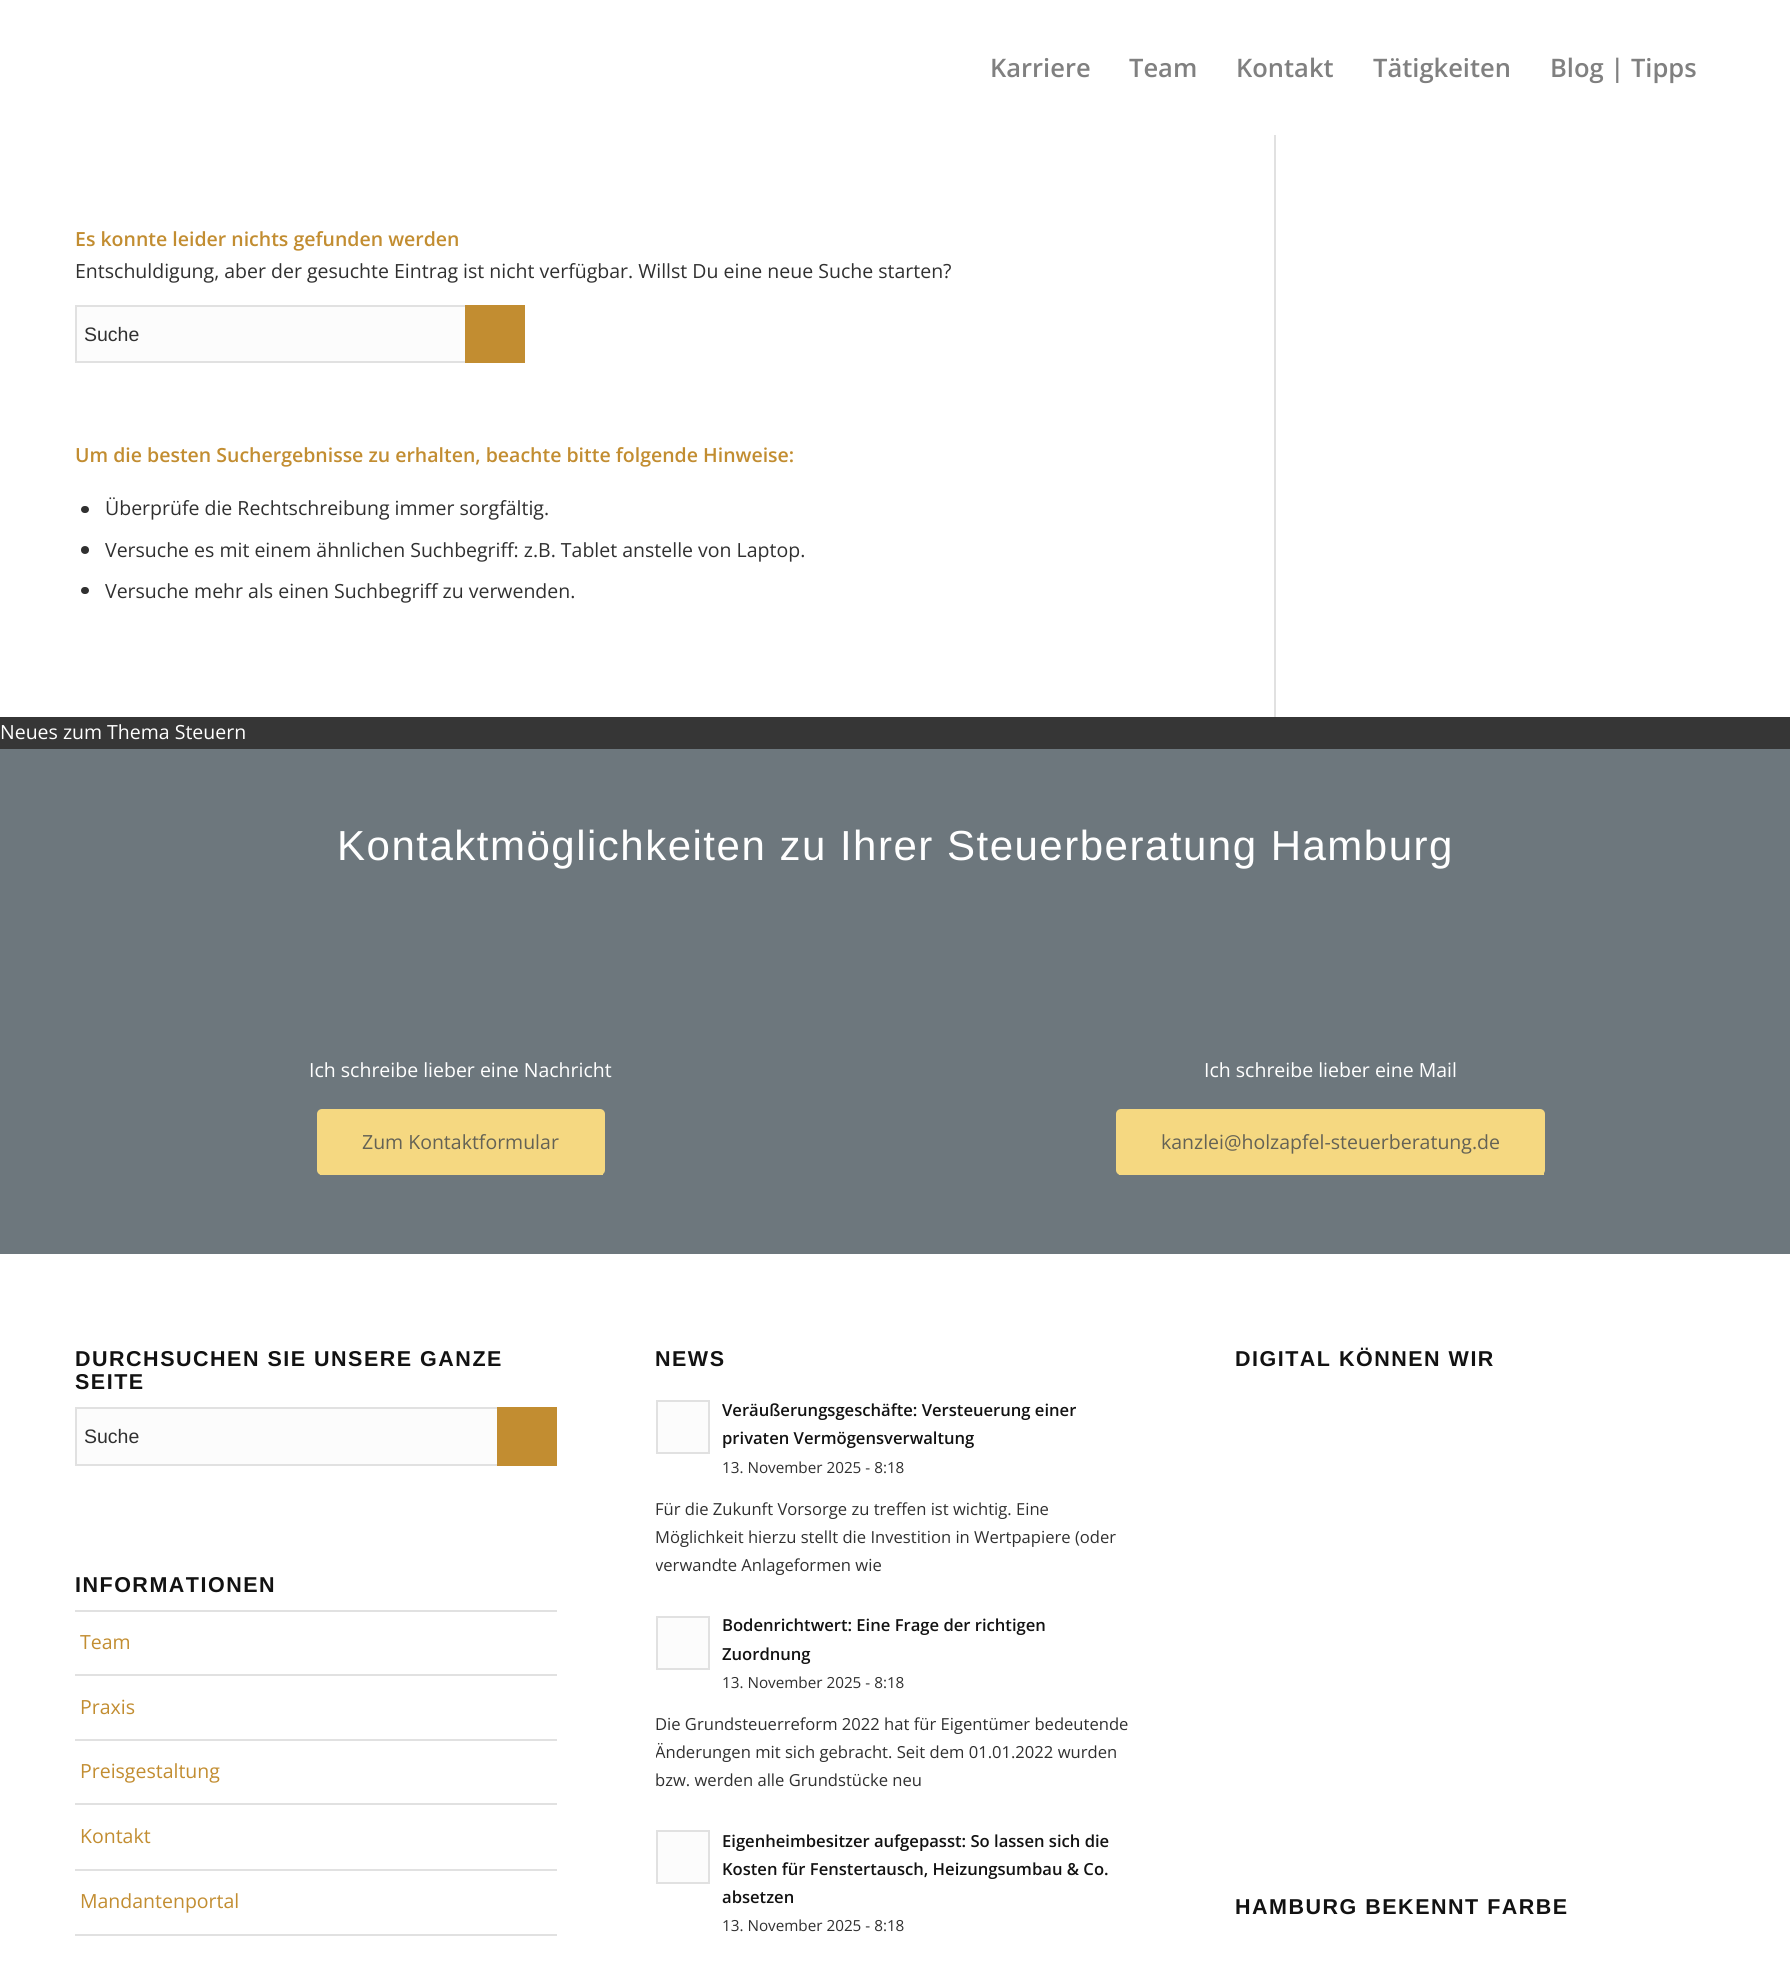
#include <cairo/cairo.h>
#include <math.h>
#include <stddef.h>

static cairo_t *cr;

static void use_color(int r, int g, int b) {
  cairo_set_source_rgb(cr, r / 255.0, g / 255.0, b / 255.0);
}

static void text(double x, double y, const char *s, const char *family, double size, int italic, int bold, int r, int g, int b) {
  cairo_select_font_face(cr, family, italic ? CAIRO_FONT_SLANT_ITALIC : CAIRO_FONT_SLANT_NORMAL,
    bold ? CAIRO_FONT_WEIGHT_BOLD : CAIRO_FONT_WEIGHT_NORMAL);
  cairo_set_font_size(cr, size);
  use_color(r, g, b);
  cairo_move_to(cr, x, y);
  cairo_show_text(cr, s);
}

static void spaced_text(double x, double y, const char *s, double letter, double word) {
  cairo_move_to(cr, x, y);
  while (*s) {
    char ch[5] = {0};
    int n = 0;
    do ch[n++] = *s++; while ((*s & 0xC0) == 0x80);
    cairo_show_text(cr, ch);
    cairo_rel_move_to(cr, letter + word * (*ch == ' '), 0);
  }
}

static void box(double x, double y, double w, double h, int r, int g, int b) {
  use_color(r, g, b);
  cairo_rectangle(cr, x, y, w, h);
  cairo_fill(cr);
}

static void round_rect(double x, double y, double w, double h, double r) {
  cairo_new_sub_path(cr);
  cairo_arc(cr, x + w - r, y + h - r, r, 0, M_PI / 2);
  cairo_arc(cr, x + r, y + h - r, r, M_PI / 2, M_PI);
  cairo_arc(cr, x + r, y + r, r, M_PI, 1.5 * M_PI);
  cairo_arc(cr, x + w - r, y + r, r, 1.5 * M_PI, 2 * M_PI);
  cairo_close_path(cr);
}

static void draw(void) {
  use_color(255, 255, 255);
  cairo_paint(cr);
  box(1274, 132, 2, 585, 225, 225, 225);
  box(1274, 132, 2, 3, 255, 255, 255);
  box(77, 307, 388, 54, 252, 252, 252);
  cairo_rectangle(cr, 76, 306, 448, 56);
  use_color(225, 225, 225);
  cairo_stroke(cr);
  box(465, 305, 60, 58, 194, 141, 49);
  use_color(48, 48, 48);
  round_rect(81, 506, 8, 7, 3.5);
  cairo_fill(cr);
  cairo_arc(cr, 85, 550, 4, 0, 2 * M_PI);
  cairo_fill(cr);
  round_rect(81, 587, 8, 7, 3.5);
  cairo_fill(cr);
  box(0, 717, 1790, 32, 54, 54, 54);
  box(0, 749, 1790, 505, 109, 119, 125);
  use_color(245, 216, 129);
  round_rect(317, 1109, 288, 66, 5);
  cairo_fill(cr);
  box(320, 1174, 283, 1, 245, 216, 129);
  round_rect(1116, 1109, 429, 66, 5);
  cairo_fill(cr);
  box(1119, 1173, 425, 2, 245, 216, 129);
  box(77, 1409, 420, 55, 252, 252, 252);
  cairo_rectangle(cr, 76, 1408, 480, 57);
  use_color(225, 225, 225);
  cairo_stroke(cr);
  box(497, 1407, 60, 59, 194, 141, 49);
  box(75, 1610, 482, 2, 225, 225, 225);
  box(75, 1674, 482, 2, 225, 225, 225);
  box(75, 1739, 482, 2, 225, 225, 225);
  box(75, 1803, 482, 2, 225, 225, 225);
  box(75, 1869, 482, 2, 225, 225, 225);
  box(75, 1934, 482, 2, 225, 225, 225);
  use_color(252, 252, 252);
  cairo_rectangle(cr, 657, 1401, 52, 52);
  cairo_fill_preserve(cr);
  use_color(225, 225, 225);
  cairo_stroke(cr);
  use_color(252, 252, 252);
  cairo_rectangle(cr, 657, 1617, 52, 52);
  cairo_fill_preserve(cr);
  use_color(225, 225, 225);
  cairo_stroke(cr);
  use_color(252, 252, 252);
  cairo_rectangle(cr, 657, 1831, 52, 52);
  cairo_fill_preserve(cr);
  use_color(225, 225, 225);
  cairo_stroke(cr);
  text(990, 77, "Karriere", "Open Sans SemiBold", 25.5, 0, 0, 128, 128, 128);
  text(1129, 77, "Team", "Open Sans SemiBold", 25.5, 0, 0, 128, 128, 128);
  text(1236, 77, "Kontakt", "Open Sans SemiBold", 25.5, 0, 0, 128, 128, 128);
  text(1373, 77, "Tätigkeiten", "Open Sans SemiBold", 25.5, 0, 0, 128, 128, 128);
  text(1550, 77, "Blog | Tipps", "Open Sans SemiBold", 25.5, 0, 0, 128, 128, 128);
  text(75, 246, "Es konnte leider nichts gefunden werden", "Open Sans SemiBold", 19.5, 0, 0, 194, 141, 49);
  text(75, 278, "Entschuldigung, aber der gesuchte Eintrag ist nicht verfügbar. Willst Du eine neue Suche starten?", "Open Sans", 19.5, 0, 0, 48, 48, 48);
  text(84, 341, "Suche", "Liberation Sans", 19.5, 0, 0, 48, 48, 48);
  text(75, 462, "Um die besten Suchergebnisse zu erhalten, beachte bitte folgende Hinweise:", "Open Sans SemiBold", 19.5, 0, 0, 194, 141, 49);
  text(105, 515, "Überprüfe die Rechtschreibung immer sorgfältig.", "Open Sans", 19.5, 0, 0, 48, 48, 48);
  text(105, 557, "Versuche es mit einem ähnlichen Suchbegriff: z.B. Tablet anstelle von Laptop.", "Open Sans", 19.5, 0, 0, 48, 48, 48);
  text(105, 598, "Versuche mehr als einen Suchbegriff zu verwenden.", "Open Sans", 19.5, 0, 0, 48, 48, 48);
  text(0, 739, "Neues zum Thema Steuern", "Open Sans", 19.5, 0, 0, 255, 255, 255);
  cairo_select_font_face(cr, "Liberation Sans", CAIRO_FONT_SLANT_NORMAL, CAIRO_FONT_WEIGHT_NORMAL);
  cairo_set_font_size(cr, 42);
  spaced_text(337, 860, "Kontaktmöglichkeiten zu Ihrer Steuerberatung Hamburg", 1.5, 0);
  text(309, 1077, "Ich schreibe lieber eine Nachricht", "Open Sans", 19.5, 0, 0, 255, 255, 255);
  text(362, 1149, "Zum Kontaktformular", "Open Sans", 19.5, 0, 0, 100, 98, 85);
  text(1204, 1077, "Ich schreibe lieber eine Mail", "Open Sans", 19.5, 0, 0, 255, 255, 255);
  text(1161, 1149, "kanzlei@holzapfel-steuerberatung.de", "Open Sans", 19.5, 0, 0, 100, 98, 85);
  cairo_select_font_face(cr, "Liberation Sans", CAIRO_FONT_SLANT_NORMAL, CAIRO_FONT_WEIGHT_BOLD);
  cairo_set_font_size(cr, 21.5);
  use_color(18, 18, 18);
  spaced_text(75, 1366, "DURCHSUCHEN SIE UNSERE GANZE", 1.5, 0);
  spaced_text(75, 1389, "SEITE", 1.5, 0);
  text(84, 1443, "Suche", "Liberation Sans", 19.5, 0, 0, 48, 48, 48);
  cairo_select_font_face(cr, "Liberation Sans", CAIRO_FONT_SLANT_NORMAL, CAIRO_FONT_WEIGHT_BOLD);
  cairo_set_font_size(cr, 21.5);
  use_color(18, 18, 18);
  spaced_text(75, 1592, "INFORMATIONEN", 1.5, 0);
  text(80, 1649, "Team", "Open Sans", 19.5, 0, 0, 194, 141, 49);
  text(80, 1714, "Praxis", "Open Sans", 19.5, 0, 0, 194, 141, 49);
  text(80, 1778, "Preisgestaltung", "Open Sans", 19.5, 0, 0, 194, 141, 49);
  text(80, 1843, "Kontakt", "Open Sans", 19.5, 0, 0, 194, 141, 49);
  text(80, 1908, "Mandantenportal", "Open Sans", 19.5, 0, 0, 194, 141, 49);
  cairo_select_font_face(cr, "Liberation Sans", CAIRO_FONT_SLANT_NORMAL, CAIRO_FONT_WEIGHT_BOLD);
  cairo_set_font_size(cr, 21.5);
  use_color(18, 18, 18);
  spaced_text(655, 1366, "NEWS", 1.5, 0);
  text(722, 1416, "Veräußerungsgeschäfte: Versteuerung einer", "Open Sans SemiBold", 16.6, 0, 0, 18, 18, 18);
  text(722, 1444, "privaten Vermögensverwaltung", "Open Sans SemiBold", 16.6, 0, 0, 18, 18, 18);
  text(722, 1473, "13. November 2025 - 8:18", "Open Sans", 15.25, 0, 0, 48, 48, 48);
  text(655, 1515, "Für die Zukunft Vorsorge zu treffen ist wichtig. Eine", "Open Sans", 16.6, 0, 0, 48, 48, 48);
  text(655, 1543, "Möglichkeit hierzu stellt die Investition in Wertpapiere (oder", "Open Sans", 16.6, 0, 0, 48, 48, 48);
  cairo_save(cr);
  cairo_rectangle(cr, 656, 1383, 480, 216);
  cairo_clip(cr);
  text(655, 1571, "verwandte Anlageformen wie", "Open Sans", 16.6, 0, 0, 48, 48, 48);
  cairo_restore(cr);
  text(722, 1631, "Bodenrichtwert: Eine Frage der richtigen", "Open Sans SemiBold", 16.6, 0, 0, 18, 18, 18);
  text(722, 1660, "Zuordnung", "Open Sans SemiBold", 16.6, 0, 0, 18, 18, 18);
  text(722, 1688, "13. November 2025 - 8:18", "Open Sans", 15.25, 0, 0, 48, 48, 48);
  text(655, 1730, "Die Grundsteuerreform 2022 hat für Eigentümer bedeutende", "Open Sans", 16.6, 0, 0, 48, 48, 48);
  cairo_save(cr);
  cairo_rectangle(cr, 656, 1599, 480, 215);
  cairo_clip(cr);
  text(655, 1758, "Änderungen mit sich gebracht. Seit dem 01.01.2022 wurden", "Open Sans", 16.6, 0, 0, 48, 48, 48);
  cairo_restore(cr);
  text(655, 1786, "bzw. werden alle Grundstücke neu", "Open Sans", 16.6, 0, 0, 48, 48, 48);
  text(722, 1847, "Eigenheimbesitzer aufgepasst: So lassen sich die", "Open Sans SemiBold", 16.6, 0, 0, 18, 18, 18);
  text(722, 1875, "Kosten für Fenstertausch, Heizungsumbau & Co.", "Open Sans SemiBold", 16.6, 0, 0, 18, 18, 18);
  text(722, 1903, "absetzen", "Open Sans SemiBold", 16.6, 0, 0, 18, 18, 18);
  text(722, 1931, "13. November 2025 - 8:18", "Open Sans", 15.25, 0, 0, 48, 48, 48);
  cairo_select_font_face(cr, "Liberation Sans", CAIRO_FONT_SLANT_NORMAL, CAIRO_FONT_WEIGHT_BOLD);
  cairo_set_font_size(cr, 21.5);
  use_color(18, 18, 18);
  spaced_text(1235, 1366, "DIGITAL KÖNNEN WIR", 1.5, 0);
  spaced_text(1235, 1914, "HAMBURG BEKENNT FARBE", 1.5, 0);
}

int main(void) {
  cairo_surface_t *surface = cairo_image_surface_create(CAIRO_FORMAT_RGB24, 1790, 1965);
  cr = cairo_create(surface);
  cairo_font_options_t *options = cairo_font_options_create();
  cairo_font_options_set_hint_metrics(options, CAIRO_HINT_METRICS_OFF);
  cairo_font_options_set_hint_style(options, CAIRO_HINT_STYLE_NONE);
  cairo_set_font_options(cr, options);
  cairo_set_miter_limit(cr, 4);
  draw();
  cairo_surface_write_to_png(surface, "out.png");
  cairo_font_options_destroy(options);
  cairo_destroy(cr);
  cairo_surface_destroy(surface);
  return 0;
}
